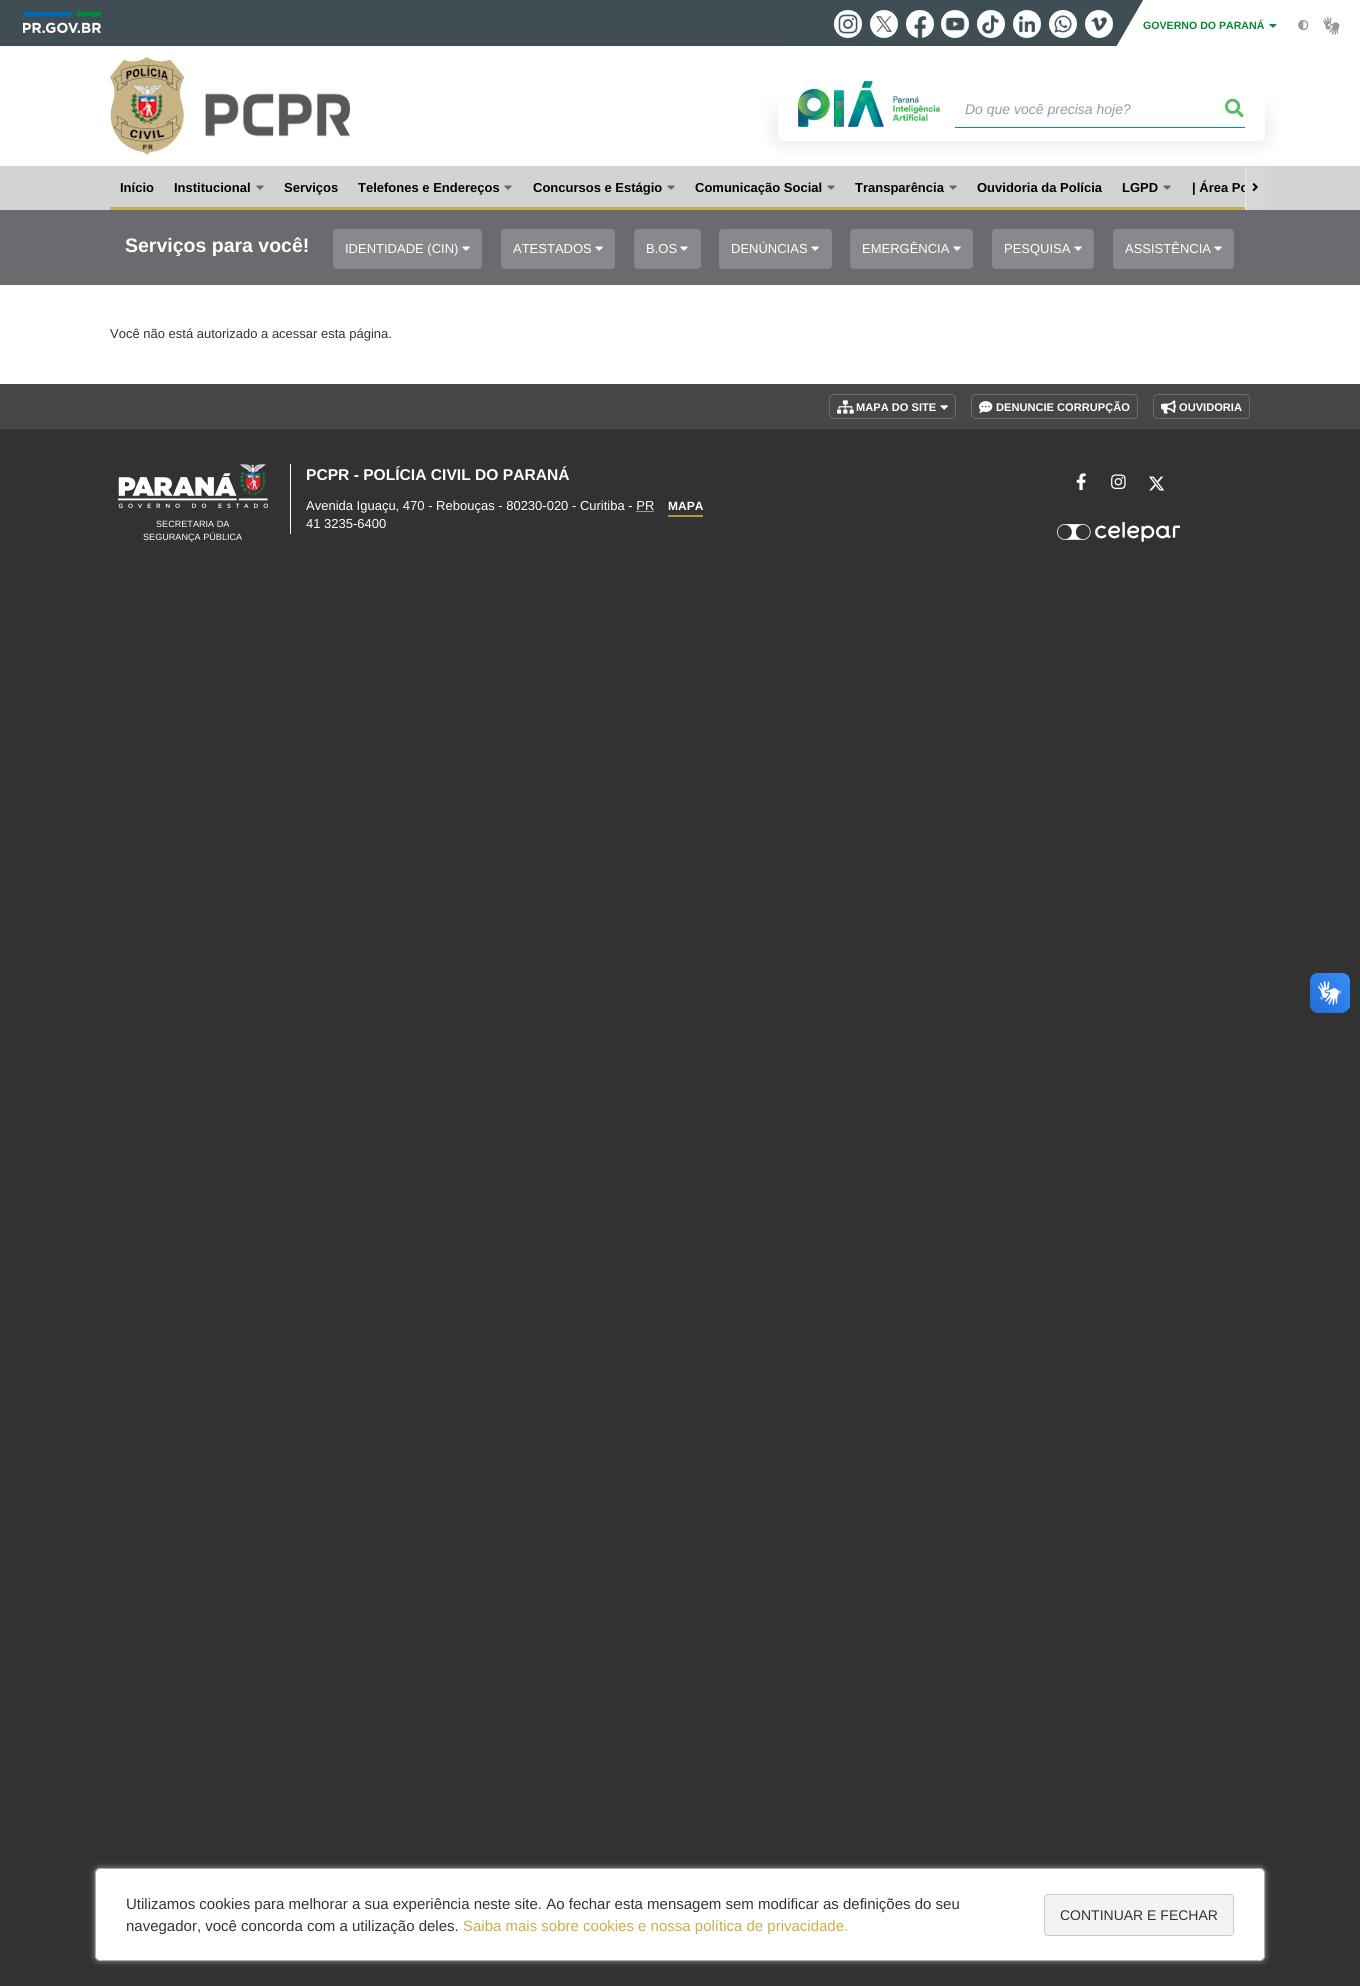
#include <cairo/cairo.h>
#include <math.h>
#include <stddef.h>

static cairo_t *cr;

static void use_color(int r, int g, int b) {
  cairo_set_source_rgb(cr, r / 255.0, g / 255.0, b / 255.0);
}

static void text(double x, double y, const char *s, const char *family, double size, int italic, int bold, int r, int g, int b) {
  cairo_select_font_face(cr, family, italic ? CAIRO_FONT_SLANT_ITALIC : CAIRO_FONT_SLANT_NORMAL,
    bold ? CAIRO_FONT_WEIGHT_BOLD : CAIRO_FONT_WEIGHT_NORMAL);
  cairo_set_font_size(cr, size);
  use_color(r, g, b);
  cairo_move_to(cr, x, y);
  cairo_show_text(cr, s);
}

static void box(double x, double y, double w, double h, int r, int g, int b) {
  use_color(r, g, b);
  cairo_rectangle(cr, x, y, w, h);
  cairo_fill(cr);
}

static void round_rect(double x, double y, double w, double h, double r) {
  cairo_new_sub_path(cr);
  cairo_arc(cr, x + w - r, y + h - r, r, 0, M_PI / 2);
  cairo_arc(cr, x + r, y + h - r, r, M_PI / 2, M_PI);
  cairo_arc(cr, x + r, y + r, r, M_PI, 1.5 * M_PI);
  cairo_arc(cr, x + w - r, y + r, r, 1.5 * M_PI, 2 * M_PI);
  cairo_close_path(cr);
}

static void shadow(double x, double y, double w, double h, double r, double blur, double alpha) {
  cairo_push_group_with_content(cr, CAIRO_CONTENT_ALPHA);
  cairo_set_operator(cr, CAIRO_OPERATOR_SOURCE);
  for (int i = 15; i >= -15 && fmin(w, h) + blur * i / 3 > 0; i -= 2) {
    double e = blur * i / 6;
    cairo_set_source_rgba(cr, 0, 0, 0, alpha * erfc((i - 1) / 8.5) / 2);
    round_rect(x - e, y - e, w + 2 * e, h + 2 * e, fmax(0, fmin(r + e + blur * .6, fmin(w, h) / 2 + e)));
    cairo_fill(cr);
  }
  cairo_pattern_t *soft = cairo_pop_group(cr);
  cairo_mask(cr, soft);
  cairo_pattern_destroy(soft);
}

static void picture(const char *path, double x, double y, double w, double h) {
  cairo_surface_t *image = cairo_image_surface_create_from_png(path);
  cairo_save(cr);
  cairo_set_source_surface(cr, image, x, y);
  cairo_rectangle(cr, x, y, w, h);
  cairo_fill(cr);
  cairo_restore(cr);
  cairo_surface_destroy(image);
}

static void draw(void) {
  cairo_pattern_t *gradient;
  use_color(50, 50, 50);
  cairo_paint(cr);
  box(0, 0, 1116, 46, 63, 78, 85);
  picture("img_01.png", 1116, 0, 244, 46);
  picture("img_02.png", 23, 12, 78, 21);
  picture("img_03.png", 834, 10, 28, 28);
  picture("img_04.png", 870, 10, 28, 28);
  picture("img_05.png", 906, 10, 28, 28);
  picture("img_06.png", 941, 10, 28, 28);
  picture("img_07.png", 977, 10, 28, 28);
  picture("img_08.png", 1013, 10, 28, 28);
  picture("img_09.png", 1049, 10, 28, 28);
  picture("img_10.png", 1085, 10, 28, 28);
  use_color(6, 136, 51);
  cairo_new_path(cr);
  cairo_move_to(cr, 1269, 24);
  cairo_line_to(cr, 1277, 24);
  cairo_line_to(cr, 1273, 28);
  cairo_close_path(cr);
  cairo_fill(cr);
  picture("img_11.png", 1298, 20, 11, 11);
  picture("img_12.png", 1323, 17, 17, 18);
  box(0, 46, 1360, 120, 255, 255, 255);
  picture("img_13.png", 110, 57, 240, 98);
  box(0, 166, 1245, 44, 210, 211, 213);
  box(1265, 166, 95, 44, 210, 211, 213);
  cairo_save(cr);
  cairo_set_fill_rule(cr, CAIRO_FILL_RULE_EVEN_ODD);
  cairo_new_path(cr);
  cairo_move_to(cr, 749, 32);
  cairo_line_to(cr, 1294, 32);
  cairo_line_to(cr, 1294, 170);
  cairo_line_to(cr, 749, 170);
  cairo_close_path(cr);
  cairo_move_to(cr, 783, 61);
  cairo_line_to(cr, 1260, 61);
  cairo_curve_to(cr, 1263, 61, 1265, 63, 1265, 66);
  cairo_line_to(cr, 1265, 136);
  cairo_curve_to(cr, 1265, 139, 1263, 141, 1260, 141);
  cairo_line_to(cr, 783, 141);
  cairo_curve_to(cr, 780, 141, 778, 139, 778, 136);
  cairo_line_to(cr, 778, 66);
  cairo_curve_to(cr, 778, 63, 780, 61, 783, 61);
  cairo_close_path(cr);
  cairo_clip(cr);
  use_color(0, 0, 0);
  shadow(773, 56, 497, 90, 10, 7.5, 0.08);
  cairo_restore(cr);
  gradient = cairo_pattern_create_linear(1031, 46, 1031, 126);
  cairo_pattern_add_color_stop_rgba(gradient, 0, 1, 1, 1, 1);
  cairo_pattern_add_color_stop_rgba(gradient, 0.6, 1, 1, 1, 1);
  cairo_pattern_add_color_stop_rgba(gradient, 1, 1, 1, 1, 0);
  cairo_set_source(cr, gradient);
  cairo_pattern_destroy(gradient);
  cairo_rectangle(cr, 764, 47, 515, 73);
  cairo_fill(cr);
  picture("img_14.png", 798, 81, 142, 46);
  box(955, 127, 290, 1, 1, 145, 154);
  picture("img_15.png", 1225, 98, 19, 20);
  box(110, 207, 1135, 3, 201, 175, 75);
  picture("img_16.png", 256, 185, 8, 5);
  picture("img_16.png", 504, 185, 8, 5);
  picture("img_16.png", 667, 185, 8, 5);
  picture("img_16.png", 827, 185, 8, 5);
  picture("img_16.png", 949, 185, 8, 5);
  picture("img_16.png", 1163, 185, 8, 5);
  box(0, 210, 1360, 75, 106, 107, 111);
  use_color(136, 137, 140);
  round_rect(333, 229, 149, 40, 4);
  cairo_fill(cr);
  picture("img_18.png", 462, 246, 8, 5);
  round_rect(501, 229, 114, 40, 4);
  cairo_fill(cr);
  picture("img_18.png", 595, 246, 8, 5);
  round_rect(634, 229, 67, 40, 4);
  cairo_fill(cr);
  picture("img_18.png", 680, 246, 8, 5);
  round_rect(719, 229, 113, 40, 4);
  cairo_fill(cr);
  picture("img_18.png", 811, 246, 8, 5);
  round_rect(850, 229, 123, 40, 4);
  cairo_fill(cr);
  picture("img_18.png", 953, 246, 8, 5);
  round_rect(992, 229, 102, 40, 4);
  cairo_fill(cr);
  picture("img_18.png", 1074, 246, 8, 5);
  round_rect(1113, 229, 121, 40, 4);
  cairo_fill(cr);
  picture("img_18.png", 1214, 246, 8, 5);
  box(0, 285, 1360, 99, 255, 255, 255);
  box(0, 384, 1360, 45, 70, 70, 70);
  round_rect(829.5, 394.5, 126, 24, 4.5);
  use_color(107, 107, 107);
  cairo_set_line_width(cr, 1);
  cairo_stroke(cr);
  picture("img_19.png", 837, 400, 17, 14);
  picture("img_20.png", 940, 405, 8, 5);
  round_rect(971.5, 394.5, 166, 24, 4.5);
  cairo_stroke(cr);
  picture("img_21.png", 979, 401, 14, 12);
  round_rect(1153.5, 394.5, 96, 24, 4.5);
  cairo_stroke(cr);
  picture("img_22.png", 1161, 400, 15, 14);
  picture("img_23.png", 118, 464, 150, 44);
  box(290, 464, 1, 70, 255, 255, 255);
  box(668, 515, 35, 2, 175, 153, 65);
  cairo_new_path(cr);
  cairo_move_to(cr, 636.5, 511.5);
  cairo_line_to(cr, 654.5, 511.5);
  use_color(255, 255, 255);
  cairo_set_dash(cr, (double[]){1, 1}, 2, 0);
  cairo_stroke(cr);
  picture("img_24.png", 1076, 473, 10, 18);
  picture("img_25.png", 1111, 474, 15, 16);
  picture("img_26.png", 1149, 476, 16, 15);
  picture("img_27.png", 1057, 522, 123, 20);
  picture("img_28.png", 1310, 973, 40, 40);
  picture("img_29.png", 1310, 973, 40, 40);
  use_color(153, 153, 153);
  shadow(95, 1868, 1170, 93, 5, 3, 1);
  use_color(255, 255, 255);
  round_rect(95.5, 1868.5, 1169, 92, 4.5);
  cairo_fill_preserve(cr);
  use_color(173, 173, 173);
  cairo_set_dash(cr, NULL, 0, 0);
  cairo_stroke(cr);
  use_color(243, 243, 243);
  round_rect(1044.5, 1894.5, 189, 41, 3.5);
  cairo_fill_preserve(cr);
  use_color(204, 204, 204);
  cairo_stroke(cr);
  text(1143, 29, "GOVERNO DO PARANÁ", "Liberation Sans", 10.6, 0, 1, 6, 136, 51);
  text(965, 114, "Do que você precisa hoje?", "Liberation Sans", 14, 1, 0, 153, 153, 153);
  text(120, 192, "Início", "Liberation Sans", 13, 0, 1, 0, 0, 0);
  text(174, 192, "Institucional", "Liberation Sans", 13, 0, 1, 0, 0, 0);
  text(284, 192, "Serviços", "Liberation Sans", 13, 0, 1, 0, 0, 0);
  text(358, 192, "Telefones e Endereços", "Liberation Sans", 13, 0, 1, 0, 0, 0);
  text(533, 192, "Concursos e Estágio", "Liberation Sans", 13, 0, 1, 0, 0, 0);
  text(695, 192, "Comunicação Social", "Liberation Sans", 13, 0, 1, 0, 0, 0);
  text(855, 192, "Transparência", "Liberation Sans", 13, 0, 1, 0, 0, 0);
  text(977, 192, "Ouvidoria da Polícia", "Liberation Sans", 13, 0, 1, 0, 0, 0);
  text(1122, 192, "LGPD", "Liberation Sans", 13, 0, 1, 0, 0, 0);
  text(1192, 192, "| Área Po", "Liberation Sans", 13, 0, 1, 0, 0, 0);
  box(1245, 166, 1, 44, 232, 233, 234);
  box(1246, 166, 19, 44, 214, 215, 217);
  picture("img_17.png", 1252, 183, 6, 9);
  text(125, 252, "Serviços para você!", "Liberation Sans", 19.5, 0, 1, 255, 255, 255);
  text(345, 253, "IDENTIDADE (CIN)", "Liberation Sans", 13, 0, 0, 255, 255, 255);
  text(513, 253, "ATESTADOS", "Liberation Sans", 13, 0, 0, 255, 255, 255);
  text(646, 253, "B.OS", "Liberation Sans", 13, 0, 0, 255, 255, 255);
  text(731, 253, "DENÚNCIAS", "Liberation Sans", 13, 0, 0, 255, 255, 255);
  text(862, 253, "EMERGÊNCIA", "Liberation Sans", 13, 0, 0, 255, 255, 255);
  text(1004, 253, "PESQUISA", "Liberation Sans", 13, 0, 0, 255, 255, 255);
  text(1125, 253, "ASSISTÊNCIA", "Liberation Sans", 13, 0, 0, 255, 255, 255);
  text(110, 338, "Você não está autorizado a acessar esta página.", "Liberation Sans", 13, 0, 0, 51, 51, 51);
  text(856, 411, "MAPA DO SITE", "Liberation Sans", 11.1, 0, 1, 255, 255, 255);
  text(996, 411, "DENUNCIE CORRUPÇÃO", "Liberation Sans", 11.1, 0, 1, 255, 255, 255);
  text(1179, 411, "OUVIDORIA", "Liberation Sans", 11.1, 0, 1, 255, 255, 255);
  text(156, 527, "SECRETARIA DA", "Liberation Sans", 9.1, 0, 0, 255, 255, 255);
  text(143, 540, "SEGURANÇA PÚBLICA", "Liberation Sans", 9.1, 0, 0, 255, 255, 255);
  text(306, 480, "PCPR - POLÍCIA CIVIL DO PARANÁ", "Liberation Sans", 15.6, 0, 1, 255, 255, 255);
  text(306, 510, "Avenida Iguaçu, 470 - Rebouças - 80230-020 - Curitiba - PR", "Liberation Sans", 13, 0, 0, 255, 255, 255);
  text(668, 510, "MAPA", "Liberation Sans", 12, 0, 1, 255, 255, 255);
  text(306, 528, "41 3235-6400", "Liberation Sans", 13, 0, 0, 255, 255, 255);
  text(126, 1909, "Utilizamos cookies para melhorar a sua experiência neste site. Ao fechar esta mensagem sem modificar as definições do seu", "Liberation Sans", 15, 0, 0, 51, 51, 51);
  text(126, 1931, "navegador, você concorda com a utilização deles.", "Liberation Sans", 15, 0, 0, 51, 51, 51);
  text(463, 1931, "Saiba mais sobre cookies e nossa política de privacidade.", "Liberation Sans", 15, 0, 0, 201, 175, 75);
  text(1060, 1920, "CONTINUAR E FECHAR", "Liberation Sans", 14, 0, 0, 51, 51, 51);
}

int main(void) {
  cairo_surface_t *surface = cairo_image_surface_create(CAIRO_FORMAT_RGB24, 1360, 1986);
  cr = cairo_create(surface);
  cairo_font_options_t *options = cairo_font_options_create();
  cairo_font_options_set_hint_metrics(options, CAIRO_HINT_METRICS_OFF);
  cairo_font_options_set_hint_style(options, CAIRO_HINT_STYLE_NONE);
  cairo_set_font_options(cr, options);
  cairo_set_miter_limit(cr, 4);
  draw();
  cairo_surface_write_to_png(surface, "out.png");
  cairo_font_options_destroy(options);
  cairo_destroy(cr);
  cairo_surface_destroy(surface);
  return 0;
}
